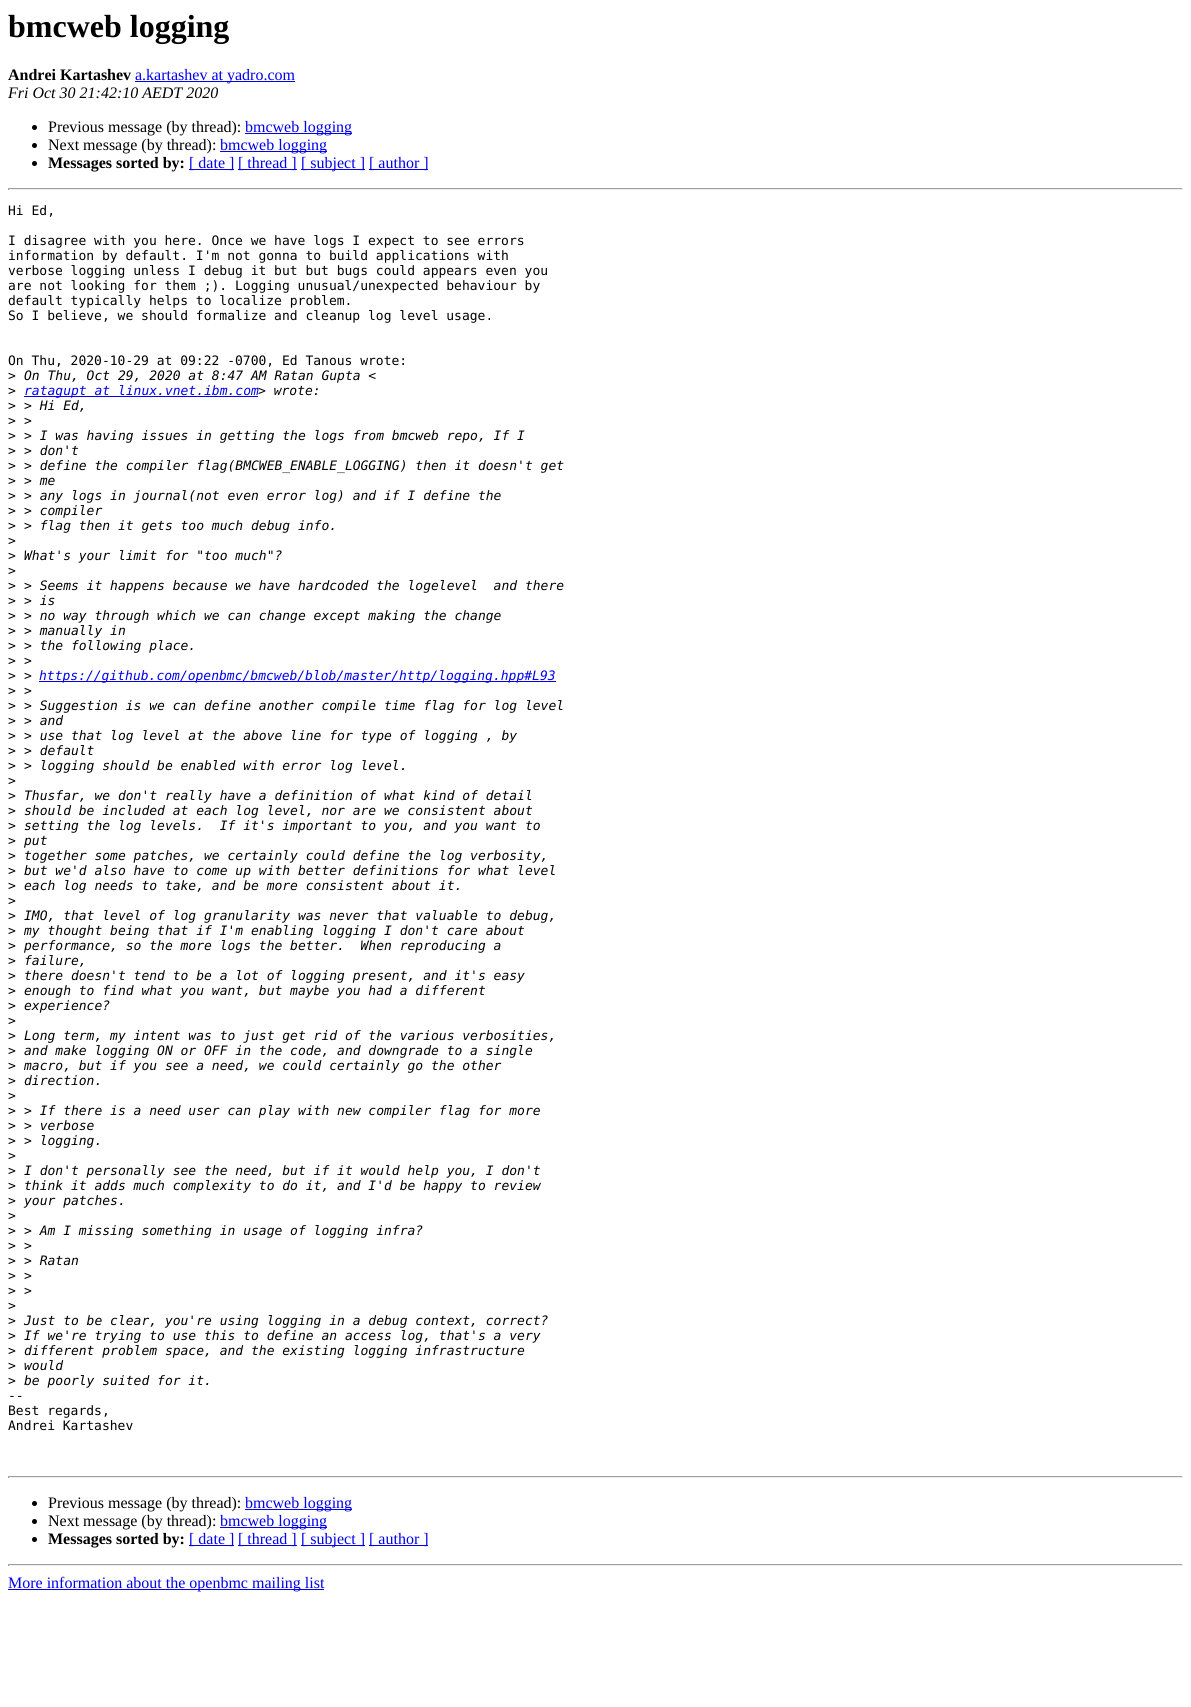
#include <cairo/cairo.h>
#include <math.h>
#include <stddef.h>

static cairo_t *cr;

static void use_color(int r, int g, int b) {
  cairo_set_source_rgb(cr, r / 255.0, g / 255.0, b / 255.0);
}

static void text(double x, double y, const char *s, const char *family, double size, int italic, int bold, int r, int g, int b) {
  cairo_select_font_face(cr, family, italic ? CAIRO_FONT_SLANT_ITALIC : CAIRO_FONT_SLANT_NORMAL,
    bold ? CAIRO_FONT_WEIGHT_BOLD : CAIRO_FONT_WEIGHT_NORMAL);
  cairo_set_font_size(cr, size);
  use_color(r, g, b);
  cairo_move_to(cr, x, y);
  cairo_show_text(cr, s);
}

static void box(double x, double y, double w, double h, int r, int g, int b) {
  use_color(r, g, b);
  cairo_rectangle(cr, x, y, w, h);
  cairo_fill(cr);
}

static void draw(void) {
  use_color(255, 255, 255);
  cairo_paint(cr);
  box(135, 81, 160, 1, 0, 0, 238);
  use_color(0, 0, 0);
  cairo_arc(cr, 34.5, 127.5, 2.5, 0, 2 * M_PI);
  cairo_fill(cr);
  box(245, 133, 107, 1, 0, 0, 238);
  use_color(0, 0, 0);
  cairo_arc(cr, 34.5, 145.5, 2.5, 0, 2 * M_PI);
  cairo_fill(cr);
  box(220, 151, 107, 1, 0, 0, 238);
  use_color(0, 0, 0);
  cairo_arc(cr, 34.5, 163.5, 2.5, 0, 2 * M_PI);
  cairo_fill(cr);
  box(189, 169, 45, 1, 0, 0, 238);
  box(238, 169, 59, 1, 0, 0, 238);
  box(301, 169, 64, 1, 0, 0, 238);
  box(369, 169, 59, 1, 0, 0, 238);
  box(8, 188, 1175, 1, 159, 159, 159);
  box(1182, 188, 1, 2, 238, 238, 238);
  box(8, 189, 1175, 1, 238, 238, 238);
  box(8, 188, 1, 2, 159, 159, 159);
  box(24, 396, 234, 1, 0, 0, 238);
  box(39, 681, 517, 1, 0, 0, 238);
  box(8, 1476, 1175, 1, 159, 159, 159);
  box(1182, 1476, 1, 2, 238, 238, 238);
  box(8, 1477, 1175, 1, 238, 238, 238);
  box(8, 1476, 1, 2, 159, 159, 159);
  use_color(0, 0, 0);
  cairo_arc(cr, 34.5, 1503.5, 2.5, 0, 2 * M_PI);
  cairo_fill(cr);
  box(245, 1509, 107, 1, 0, 0, 238);
  use_color(0, 0, 0);
  cairo_arc(cr, 34.5, 1521.5, 2.5, 0, 2 * M_PI);
  cairo_fill(cr);
  box(220, 1527, 107, 1, 0, 0, 238);
  use_color(0, 0, 0);
  cairo_arc(cr, 34.5, 1539.5, 2.5, 0, 2 * M_PI);
  cairo_fill(cr);
  box(189, 1545, 45, 1, 0, 0, 238);
  box(238, 1545, 59, 1, 0, 0, 238);
  box(301, 1545, 64, 1, 0, 0, 238);
  box(369, 1545, 59, 1, 0, 0, 238);
  box(8, 1564, 1175, 1, 159, 159, 159);
  box(1182, 1564, 1, 2, 238, 238, 238);
  box(8, 1565, 1175, 1, 238, 238, 238);
  box(8, 1564, 1, 2, 159, 159, 159);
  box(8, 1589, 316, 1, 0, 0, 238);
  text(8, 37, "bmcweb logging", "Liberation Serif", 32, 0, 1, 0, 0, 0);
  text(8, 80, "Andrei Kartashev", "Liberation Serif", 16, 0, 1, 0, 0, 0);
  text(135, 80, "a.kartashev at yadro.com", "Liberation Serif", 16, 0, 0, 0, 0, 238);
  text(8, 98, "Fri Oct 30 21:42:10 AEDT 2020", "Liberation Serif", 16, 1, 0, 0, 0, 0);
  text(48, 132, "Previous message (by thread):", "Liberation Serif", 16, 0, 0, 0, 0, 0);
  text(245, 132, "bmcweb logging", "Liberation Serif", 16, 0, 0, 0, 0, 238);
  text(48, 150, "Next message (by thread):", "Liberation Serif", 16, 0, 0, 0, 0, 0);
  text(220, 150, "bmcweb logging", "Liberation Serif", 16, 0, 0, 0, 0, 238);
  text(48, 168, "Messages sorted by:", "Liberation Serif", 16, 0, 1, 0, 0, 0);
  text(189, 168, "[ date ]", "Liberation Serif", 16, 0, 0, 0, 0, 238);
  text(238, 168, "[ thread ]", "Liberation Serif", 16, 0, 0, 0, 0, 238);
  text(301, 168, "[ subject ]", "Liberation Serif", 16, 0, 0, 0, 0, 238);
  text(369, 168, "[ author ]", "Liberation Serif", 16, 0, 0, 0, 0, 238);
  text(8, 215, "Hi Ed,", "DejaVu Sans Mono", 13, 0, 0, 0, 0, 0);
  text(8, 245, "I disagree with you here. Once we have logs I expect to see errors", "DejaVu Sans Mono", 13, 0, 0, 0, 0, 0);
  text(8, 260, "information by default. I'm not gonna to build applications with", "DejaVu Sans Mono", 13, 0, 0, 0, 0, 0);
  text(8, 275, "verbose logging unless I debug it but but bugs could appears even you", "DejaVu Sans Mono", 13, 0, 0, 0, 0, 0);
  text(8, 290, "are not looking for them ;). Logging unusual/unexpected behaviour by", "DejaVu Sans Mono", 13, 0, 0, 0, 0, 0);
  text(8, 305, "default typically helps to localize problem.", "DejaVu Sans Mono", 13, 0, 0, 0, 0, 0);
  text(8, 320, "So I believe, we should formalize and cleanup log level usage.", "DejaVu Sans Mono", 13, 0, 0, 0, 0, 0);
  text(8, 365, "On Thu, 2020-10-29 at 09:22 -0700, Ed Tanous wrote:", "DejaVu Sans Mono", 13, 0, 0, 0, 0, 0);
  text(8, 380, ">", "DejaVu Sans Mono", 13, 0, 0, 0, 0, 0);
  text(24, 380, "On Thu, Oct 29, 2020 at 8:47 AM Ratan Gupta <", "DejaVu Sans Mono", 13, 1, 0, 0, 0, 0);
  text(8, 395, ">", "DejaVu Sans Mono", 13, 0, 0, 0, 0, 0);
  text(24, 395, "ratagupt at linux.vnet.ibm.com", "DejaVu Sans Mono", 13, 1, 0, 0, 0, 238);
  text(258, 395, "> wrote:", "DejaVu Sans Mono", 13, 1, 0, 0, 0, 0);
  text(8, 410, ">", "DejaVu Sans Mono", 13, 0, 0, 0, 0, 0);
  text(24, 410, "> Hi Ed,", "DejaVu Sans Mono", 13, 1, 0, 0, 0, 0);
  text(8, 425, ">", "DejaVu Sans Mono", 13, 0, 0, 0, 0, 0);
  text(24, 425, ">", "DejaVu Sans Mono", 13, 1, 0, 0, 0, 0);
  text(8, 440, ">", "DejaVu Sans Mono", 13, 0, 0, 0, 0, 0);
  text(24, 440, "> I was having issues in getting the logs from bmcweb repo, If I", "DejaVu Sans Mono", 13, 1, 0, 0, 0, 0);
  text(8, 455, ">", "DejaVu Sans Mono", 13, 0, 0, 0, 0, 0);
  text(24, 455, "> don't", "DejaVu Sans Mono", 13, 1, 0, 0, 0, 0);
  text(8, 470, ">", "DejaVu Sans Mono", 13, 0, 0, 0, 0, 0);
  text(24, 470, "> define the compiler flag(BMCWEB_ENABLE_LOGGING) then it doesn't get", "DejaVu Sans Mono", 13, 1, 0, 0, 0, 0);
  text(8, 485, ">", "DejaVu Sans Mono", 13, 0, 0, 0, 0, 0);
  text(24, 485, "> me", "DejaVu Sans Mono", 13, 1, 0, 0, 0, 0);
  text(8, 500, ">", "DejaVu Sans Mono", 13, 0, 0, 0, 0, 0);
  text(24, 500, "> any logs in journal(not even error log) and if I define the", "DejaVu Sans Mono", 13, 1, 0, 0, 0, 0);
  text(8, 515, ">", "DejaVu Sans Mono", 13, 0, 0, 0, 0, 0);
  text(24, 515, "> compiler", "DejaVu Sans Mono", 13, 1, 0, 0, 0, 0);
  text(8, 530, ">", "DejaVu Sans Mono", 13, 0, 0, 0, 0, 0);
  text(24, 530, "> flag then it gets too much debug info.", "DejaVu Sans Mono", 13, 1, 0, 0, 0, 0);
  text(8, 545, ">", "DejaVu Sans Mono", 13, 0, 0, 0, 0, 0);
  text(8, 560, ">", "DejaVu Sans Mono", 13, 0, 0, 0, 0, 0);
  text(24, 560, "What's your limit for \"too much\"?", "DejaVu Sans Mono", 13, 1, 0, 0, 0, 0);
  text(8, 575, ">", "DejaVu Sans Mono", 13, 0, 0, 0, 0, 0);
  text(8, 590, ">", "DejaVu Sans Mono", 13, 0, 0, 0, 0, 0);
  text(24, 590, "> Seems it happens because we have hardcoded the logelevel  and there", "DejaVu Sans Mono", 13, 1, 0, 0, 0, 0);
  text(8, 605, ">", "DejaVu Sans Mono", 13, 0, 0, 0, 0, 0);
  text(24, 605, "> is", "DejaVu Sans Mono", 13, 1, 0, 0, 0, 0);
  text(8, 620, ">", "DejaVu Sans Mono", 13, 0, 0, 0, 0, 0);
  text(24, 620, "> no way through which we can change except making the change", "DejaVu Sans Mono", 13, 1, 0, 0, 0, 0);
  text(8, 635, ">", "DejaVu Sans Mono", 13, 0, 0, 0, 0, 0);
  text(24, 635, "> manually in", "DejaVu Sans Mono", 13, 1, 0, 0, 0, 0);
  text(8, 650, ">", "DejaVu Sans Mono", 13, 0, 0, 0, 0, 0);
  text(24, 650, "> the following place.", "DejaVu Sans Mono", 13, 1, 0, 0, 0, 0);
  text(8, 665, ">", "DejaVu Sans Mono", 13, 0, 0, 0, 0, 0);
  text(24, 665, ">", "DejaVu Sans Mono", 13, 1, 0, 0, 0, 0);
  text(8, 680, ">", "DejaVu Sans Mono", 13, 0, 0, 0, 0, 0);
  text(24, 680, ">", "DejaVu Sans Mono", 13, 1, 0, 0, 0, 0);
  text(39, 680, "https://github.com/openbmc/bmcweb/blob/master/http/logging.hpp#L93", "DejaVu Sans Mono", 13, 1, 0, 0, 0, 238);
  text(8, 695, ">", "DejaVu Sans Mono", 13, 0, 0, 0, 0, 0);
  text(24, 695, ">", "DejaVu Sans Mono", 13, 1, 0, 0, 0, 0);
  text(8, 710, ">", "DejaVu Sans Mono", 13, 0, 0, 0, 0, 0);
  text(24, 710, "> Suggestion is we can define another compile time flag for log level", "DejaVu Sans Mono", 13, 1, 0, 0, 0, 0);
  text(8, 725, ">", "DejaVu Sans Mono", 13, 0, 0, 0, 0, 0);
  text(24, 725, "> and", "DejaVu Sans Mono", 13, 1, 0, 0, 0, 0);
  text(8, 740, ">", "DejaVu Sans Mono", 13, 0, 0, 0, 0, 0);
  text(24, 740, "> use that log level at the above line for type of logging , by", "DejaVu Sans Mono", 13, 1, 0, 0, 0, 0);
  text(8, 755, ">", "DejaVu Sans Mono", 13, 0, 0, 0, 0, 0);
  text(24, 755, "> default", "DejaVu Sans Mono", 13, 1, 0, 0, 0, 0);
  text(8, 770, ">", "DejaVu Sans Mono", 13, 0, 0, 0, 0, 0);
  text(24, 770, "> logging should be enabled with error log level.", "DejaVu Sans Mono", 13, 1, 0, 0, 0, 0);
  text(8, 785, ">", "DejaVu Sans Mono", 13, 0, 0, 0, 0, 0);
  text(8, 800, ">", "DejaVu Sans Mono", 13, 0, 0, 0, 0, 0);
  text(24, 800, "Thusfar, we don't really have a definition of what kind of detail", "DejaVu Sans Mono", 13, 1, 0, 0, 0, 0);
  text(8, 815, ">", "DejaVu Sans Mono", 13, 0, 0, 0, 0, 0);
  text(24, 815, "should be included at each log level, nor are we consistent about", "DejaVu Sans Mono", 13, 1, 0, 0, 0, 0);
  text(8, 830, ">", "DejaVu Sans Mono", 13, 0, 0, 0, 0, 0);
  text(24, 830, "setting the log levels.  If it's important to you, and you want to", "DejaVu Sans Mono", 13, 1, 0, 0, 0, 0);
  text(8, 845, ">", "DejaVu Sans Mono", 13, 0, 0, 0, 0, 0);
  text(24, 845, "put", "DejaVu Sans Mono", 13, 1, 0, 0, 0, 0);
  text(8, 860, ">", "DejaVu Sans Mono", 13, 0, 0, 0, 0, 0);
  text(24, 860, "together some patches, we certainly could define the log verbosity,", "DejaVu Sans Mono", 13, 1, 0, 0, 0, 0);
  text(8, 875, ">", "DejaVu Sans Mono", 13, 0, 0, 0, 0, 0);
  text(24, 875, "but we'd also have to come up with better definitions for what level", "DejaVu Sans Mono", 13, 1, 0, 0, 0, 0);
  text(8, 890, ">", "DejaVu Sans Mono", 13, 0, 0, 0, 0, 0);
  text(24, 890, "each log needs to take, and be more consistent about it.", "DejaVu Sans Mono", 13, 1, 0, 0, 0, 0);
  text(8, 905, ">", "DejaVu Sans Mono", 13, 0, 0, 0, 0, 0);
  text(8, 920, ">", "DejaVu Sans Mono", 13, 0, 0, 0, 0, 0);
  text(24, 920, "IMO, that level of log granularity was never that valuable to debug,", "DejaVu Sans Mono", 13, 1, 0, 0, 0, 0);
  text(8, 935, ">", "DejaVu Sans Mono", 13, 0, 0, 0, 0, 0);
  text(24, 935, "my thought being that if I'm enabling logging I don't care about", "DejaVu Sans Mono", 13, 1, 0, 0, 0, 0);
  text(8, 950, ">", "DejaVu Sans Mono", 13, 0, 0, 0, 0, 0);
  text(24, 950, "performance, so the more logs the better.  When reproducing a", "DejaVu Sans Mono", 13, 1, 0, 0, 0, 0);
  text(8, 965, ">", "DejaVu Sans Mono", 13, 0, 0, 0, 0, 0);
  text(24, 965, "failure,", "DejaVu Sans Mono", 13, 1, 0, 0, 0, 0);
  text(8, 980, ">", "DejaVu Sans Mono", 13, 0, 0, 0, 0, 0);
  text(24, 980, "there doesn't tend to be a lot of logging present, and it's easy", "DejaVu Sans Mono", 13, 1, 0, 0, 0, 0);
  text(8, 995, ">", "DejaVu Sans Mono", 13, 0, 0, 0, 0, 0);
  text(24, 995, "enough to find what you want, but maybe you had a different", "DejaVu Sans Mono", 13, 1, 0, 0, 0, 0);
  text(8, 1010, ">", "DejaVu Sans Mono", 13, 0, 0, 0, 0, 0);
  text(24, 1010, "experience?", "DejaVu Sans Mono", 13, 1, 0, 0, 0, 0);
  text(8, 1025, ">", "DejaVu Sans Mono", 13, 0, 0, 0, 0, 0);
  text(8, 1040, ">", "DejaVu Sans Mono", 13, 0, 0, 0, 0, 0);
  text(24, 1040, "Long term, my intent was to just get rid of the various verbosities,", "DejaVu Sans Mono", 13, 1, 0, 0, 0, 0);
  text(8, 1055, ">", "DejaVu Sans Mono", 13, 0, 0, 0, 0, 0);
  text(24, 1055, "and make logging ON or OFF in the code, and downgrade to a single", "DejaVu Sans Mono", 13, 1, 0, 0, 0, 0);
  text(8, 1070, ">", "DejaVu Sans Mono", 13, 0, 0, 0, 0, 0);
  text(24, 1070, "macro, but if you see a need, we could certainly go the other", "DejaVu Sans Mono", 13, 1, 0, 0, 0, 0);
  text(8, 1085, ">", "DejaVu Sans Mono", 13, 0, 0, 0, 0, 0);
  text(24, 1085, "direction.", "DejaVu Sans Mono", 13, 1, 0, 0, 0, 0);
  text(8, 1100, ">", "DejaVu Sans Mono", 13, 0, 0, 0, 0, 0);
  text(8, 1115, ">", "DejaVu Sans Mono", 13, 0, 0, 0, 0, 0);
  text(24, 1115, "> If there is a need user can play with new compiler flag for more", "DejaVu Sans Mono", 13, 1, 0, 0, 0, 0);
  text(8, 1130, ">", "DejaVu Sans Mono", 13, 0, 0, 0, 0, 0);
  text(24, 1130, "> verbose", "DejaVu Sans Mono", 13, 1, 0, 0, 0, 0);
  text(8, 1145, ">", "DejaVu Sans Mono", 13, 0, 0, 0, 0, 0);
  text(24, 1145, "> logging.", "DejaVu Sans Mono", 13, 1, 0, 0, 0, 0);
  text(8, 1160, ">", "DejaVu Sans Mono", 13, 0, 0, 0, 0, 0);
  text(8, 1175, ">", "DejaVu Sans Mono", 13, 0, 0, 0, 0, 0);
  text(24, 1175, "I don't personally see the need, but if it would help you, I don't", "DejaVu Sans Mono", 13, 1, 0, 0, 0, 0);
  text(8, 1190, ">", "DejaVu Sans Mono", 13, 0, 0, 0, 0, 0);
  text(24, 1190, "think it adds much complexity to do it, and I'd be happy to review", "DejaVu Sans Mono", 13, 1, 0, 0, 0, 0);
  text(8, 1205, ">", "DejaVu Sans Mono", 13, 0, 0, 0, 0, 0);
  text(24, 1205, "your patches.", "DejaVu Sans Mono", 13, 1, 0, 0, 0, 0);
  text(8, 1220, ">", "DejaVu Sans Mono", 13, 0, 0, 0, 0, 0);
  text(8, 1235, ">", "DejaVu Sans Mono", 13, 0, 0, 0, 0, 0);
  text(24, 1235, "> Am I missing something in usage of logging infra?", "DejaVu Sans Mono", 13, 1, 0, 0, 0, 0);
  text(8, 1250, ">", "DejaVu Sans Mono", 13, 0, 0, 0, 0, 0);
  text(24, 1250, ">", "DejaVu Sans Mono", 13, 1, 0, 0, 0, 0);
  text(8, 1265, ">", "DejaVu Sans Mono", 13, 0, 0, 0, 0, 0);
  text(24, 1265, "> Ratan", "DejaVu Sans Mono", 13, 1, 0, 0, 0, 0);
  text(8, 1280, ">", "DejaVu Sans Mono", 13, 0, 0, 0, 0, 0);
  text(24, 1280, ">", "DejaVu Sans Mono", 13, 1, 0, 0, 0, 0);
  text(8, 1295, ">", "DejaVu Sans Mono", 13, 0, 0, 0, 0, 0);
  text(24, 1295, ">", "DejaVu Sans Mono", 13, 1, 0, 0, 0, 0);
  text(8, 1310, ">", "DejaVu Sans Mono", 13, 0, 0, 0, 0, 0);
  text(8, 1325, ">", "DejaVu Sans Mono", 13, 0, 0, 0, 0, 0);
  text(24, 1325, "Just to be clear, you're using logging in a debug context, correct?", "DejaVu Sans Mono", 13, 1, 0, 0, 0, 0);
  text(8, 1340, ">", "DejaVu Sans Mono", 13, 0, 0, 0, 0, 0);
  text(24, 1340, "If we're trying to use this to define an access log, that's a very", "DejaVu Sans Mono", 13, 1, 0, 0, 0, 0);
  text(8, 1355, ">", "DejaVu Sans Mono", 13, 0, 0, 0, 0, 0);
  text(24, 1355, "different problem space, and the existing logging infrastructure", "DejaVu Sans Mono", 13, 1, 0, 0, 0, 0);
  text(8, 1370, ">", "DejaVu Sans Mono", 13, 0, 0, 0, 0, 0);
  text(24, 1370, "would", "DejaVu Sans Mono", 13, 1, 0, 0, 0, 0);
  text(8, 1385, ">", "DejaVu Sans Mono", 13, 0, 0, 0, 0, 0);
  text(24, 1385, "be poorly suited for it.", "DejaVu Sans Mono", 13, 1, 0, 0, 0, 0);
  text(8, 1400, "--", "DejaVu Sans Mono", 13, 0, 0, 0, 0, 0);
  text(8, 1415, "Best regards,", "DejaVu Sans Mono", 13, 0, 0, 0, 0, 0);
  text(8, 1430, "Andrei Kartashev", "DejaVu Sans Mono", 13, 0, 0, 0, 0, 0);
  text(48, 1508, "Previous message (by thread):", "Liberation Serif", 16, 0, 0, 0, 0, 0);
  text(245, 1508, "bmcweb logging", "Liberation Serif", 16, 0, 0, 0, 0, 238);
  text(48, 1526, "Next message (by thread):", "Liberation Serif", 16, 0, 0, 0, 0, 0);
  text(220, 1526, "bmcweb logging", "Liberation Serif", 16, 0, 0, 0, 0, 238);
  text(48, 1544, "Messages sorted by:", "Liberation Serif", 16, 0, 1, 0, 0, 0);
  text(189, 1544, "[ date ]", "Liberation Serif", 16, 0, 0, 0, 0, 238);
  text(238, 1544, "[ thread ]", "Liberation Serif", 16, 0, 0, 0, 0, 238);
  text(301, 1544, "[ subject ]", "Liberation Serif", 16, 0, 0, 0, 0, 238);
  text(369, 1544, "[ author ]", "Liberation Serif", 16, 0, 0, 0, 0, 238);
  text(8, 1588, "More information about the openbmc mailing list", "Liberation Serif", 16, 0, 0, 0, 0, 238);
}

int main(void) {
  cairo_surface_t *surface = cairo_image_surface_create(CAIRO_FORMAT_RGB24, 1191, 1707);
  cr = cairo_create(surface);
  cairo_font_options_t *options = cairo_font_options_create();
  cairo_font_options_set_hint_metrics(options, CAIRO_HINT_METRICS_OFF);
  cairo_font_options_set_hint_style(options, CAIRO_HINT_STYLE_NONE);
  cairo_set_font_options(cr, options);
  cairo_set_miter_limit(cr, 4);
  draw();
  cairo_surface_write_to_png(surface, "out.png");
  cairo_font_options_destroy(options);
  cairo_destroy(cr);
  cairo_surface_destroy(surface);
  return 0;
}
